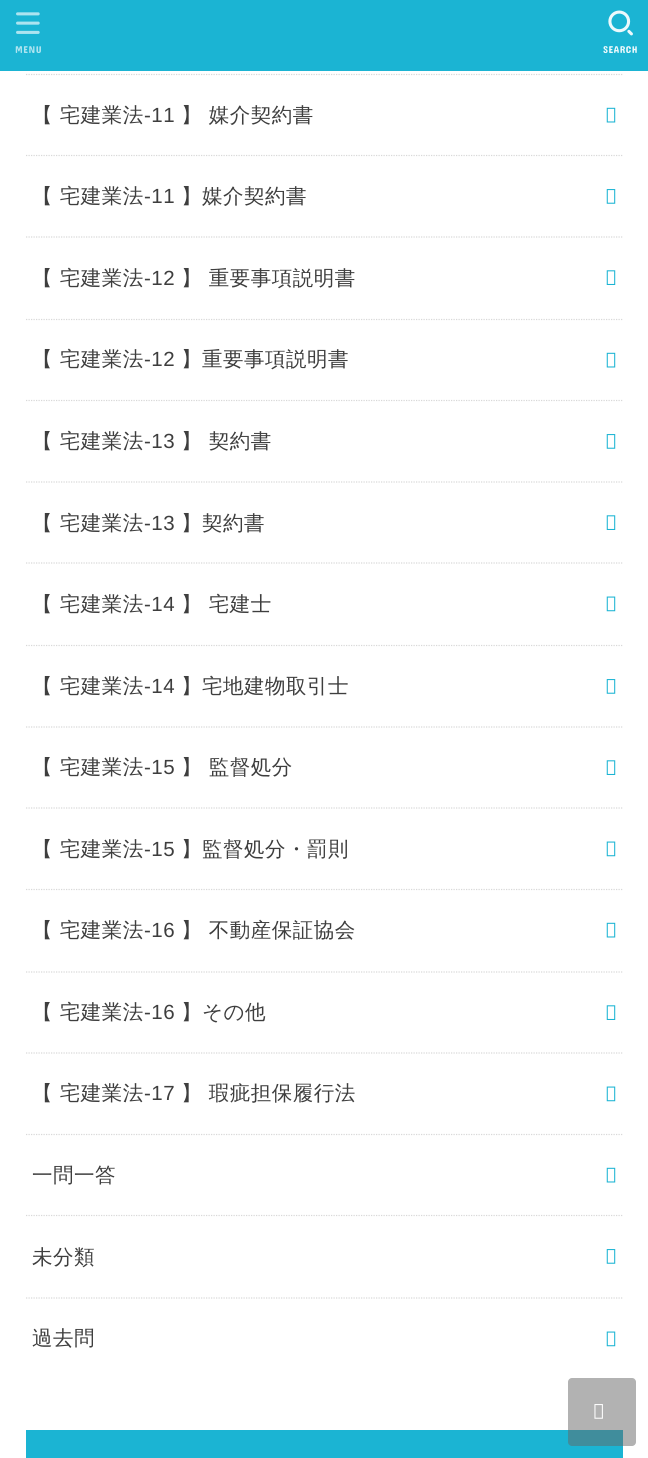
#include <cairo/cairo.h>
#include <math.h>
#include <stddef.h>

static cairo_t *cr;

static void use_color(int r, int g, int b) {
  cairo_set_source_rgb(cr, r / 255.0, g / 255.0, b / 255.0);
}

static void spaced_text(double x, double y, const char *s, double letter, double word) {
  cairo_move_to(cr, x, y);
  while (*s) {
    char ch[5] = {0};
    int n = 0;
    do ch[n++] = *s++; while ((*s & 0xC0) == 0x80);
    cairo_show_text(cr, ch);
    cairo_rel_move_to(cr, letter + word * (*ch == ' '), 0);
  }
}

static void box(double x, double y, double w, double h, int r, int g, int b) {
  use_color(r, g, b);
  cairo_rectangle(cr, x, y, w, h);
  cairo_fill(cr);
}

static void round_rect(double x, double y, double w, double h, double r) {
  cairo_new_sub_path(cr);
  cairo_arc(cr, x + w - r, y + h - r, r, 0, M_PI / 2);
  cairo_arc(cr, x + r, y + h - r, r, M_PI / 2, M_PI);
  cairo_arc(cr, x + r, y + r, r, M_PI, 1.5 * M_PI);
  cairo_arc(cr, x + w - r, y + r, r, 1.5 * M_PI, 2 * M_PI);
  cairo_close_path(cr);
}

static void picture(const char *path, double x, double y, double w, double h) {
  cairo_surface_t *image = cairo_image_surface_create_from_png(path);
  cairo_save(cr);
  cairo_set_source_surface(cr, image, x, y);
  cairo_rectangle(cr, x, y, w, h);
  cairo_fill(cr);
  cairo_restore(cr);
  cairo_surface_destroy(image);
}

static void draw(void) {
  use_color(255, 255, 255);
  cairo_paint(cr);
  box(0, 0, 648, 71, 27, 180, 211);
  picture("img_01.png", 16, 12, 24, 22);
  picture("img_02.png", 608, 10, 25, 26);
  cairo_new_path(cr);
  cairo_move_to(cr, 26, 74.5);
  cairo_line_to(cr, 622.5, 74.5);
  use_color(216, 216, 216);
  cairo_set_line_width(cr, 1.2);
  cairo_set_dash(cr, (double[]){1.25, 1.25}, 2, 0);
  cairo_stroke(cr);
  cairo_new_path(cr);
  cairo_move_to(cr, 26, 155.5);
  cairo_line_to(cr, 622.5, 155.5);
  cairo_stroke(cr);
  picture("img_03.png", 606, 107, 10, 16);
  cairo_new_path(cr);
  cairo_move_to(cr, 26, 237);
  cairo_line_to(cr, 622.5, 237);
  cairo_stroke(cr);
  picture("img_04.png", 606, 189, 10, 15);
  cairo_new_path(cr);
  cairo_move_to(cr, 26, 319.5);
  cairo_line_to(cr, 622.5, 319.5);
  cairo_stroke(cr);
  picture("img_05.png", 606, 270, 10, 15);
  cairo_new_path(cr);
  cairo_move_to(cr, 26, 400.5);
  cairo_line_to(cr, 622.5, 400.5);
  cairo_stroke(cr);
  picture("img_03.png", 606, 352, 10, 16);
  cairo_new_path(cr);
  cairo_move_to(cr, 26, 482);
  cairo_line_to(cr, 622.5, 482);
  cairo_stroke(cr);
  picture("img_04.png", 606, 434, 10, 15);
  cairo_new_path(cr);
  cairo_move_to(cr, 26, 563);
  cairo_line_to(cr, 622.5, 563);
  cairo_stroke(cr);
  picture("img_05.png", 606, 515, 10, 15);
  cairo_new_path(cr);
  cairo_move_to(cr, 26, 645.5);
  cairo_line_to(cr, 622.5, 645.5);
  cairo_stroke(cr);
  picture("img_06.png", 606, 596, 10, 16);
  cairo_new_path(cr);
  cairo_move_to(cr, 26, 727);
  cairo_line_to(cr, 622.5, 727);
  cairo_stroke(cr);
  picture("img_04.png", 606, 679, 10, 15);
  cairo_new_path(cr);
  cairo_move_to(cr, 26, 808);
  cairo_line_to(cr, 622.5, 808);
  cairo_stroke(cr);
  picture("img_05.png", 606, 760, 10, 15);
  cairo_new_path(cr);
  cairo_move_to(cr, 26, 889.5);
  cairo_line_to(cr, 622.5, 889.5);
  cairo_stroke(cr);
  picture("img_06.png", 606, 841, 10, 16);
  cairo_new_path(cr);
  cairo_move_to(cr, 26, 972);
  cairo_line_to(cr, 622.5, 972);
  cairo_stroke(cr);
  picture("img_03.png", 606, 922, 10, 16);
  cairo_new_path(cr);
  cairo_move_to(cr, 26, 1053);
  cairo_line_to(cr, 622.5, 1053);
  cairo_stroke(cr);
  picture("img_05.png", 606, 1005, 10, 15);
  cairo_new_path(cr);
  cairo_move_to(cr, 26, 1134.5);
  cairo_line_to(cr, 622.5, 1134.5);
  cairo_stroke(cr);
  picture("img_06.png", 606, 1086, 10, 16);
  cairo_new_path(cr);
  cairo_move_to(cr, 26, 1215.5);
  cairo_line_to(cr, 622.5, 1215.5);
  cairo_stroke(cr);
  picture("img_03.png", 606, 1167, 10, 16);
  cairo_new_path(cr);
  cairo_move_to(cr, 26, 1298);
  cairo_line_to(cr, 622.5, 1298);
  cairo_stroke(cr);
  picture("img_04.png", 606, 1249, 10, 15);
  picture("img_06.png", 606, 1331, 10, 16);
  box(26, 1430, 597, 28, 27, 180, 211);
  cairo_set_source_rgba(cr, 0.4, 0.4, 0.4, 0.5);
  round_rect(568, 1378, 68, 68, 4);
  cairo_fill(cr);
  picture("img_07.png", 594, 1404, 9, 15);
  cairo_select_font_face(cr, "Concert One", CAIRO_FONT_SLANT_NORMAL, CAIRO_FONT_WEIGHT_NORMAL);
  cairo_set_font_size(cr, 10);
  use_color(174, 228, 240);
  spaced_text(15, 53, "MENU", 0.5, 0);
  use_color(237, 249, 252);
  spaced_text(603, 53, "SEARCH", 0.5, 0);
  cairo_select_font_face(cr, "WenQuanYi Zen Hei Medium", CAIRO_FONT_SLANT_NORMAL, CAIRO_FONT_WEIGHT_NORMAL);
  cairo_set_font_size(cr, 20.5);
  use_color(62, 62, 62);
  spaced_text(32, 122, "【 宅建業法", 0.5, 0);
  cairo_select_font_face(cr, "Liberation Sans", CAIRO_FONT_SLANT_NORMAL, CAIRO_FONT_WEIGHT_NORMAL);
  spaced_text(144, 122, "-11", 0.5, 0);
  cairo_select_font_face(cr, "WenQuanYi Zen Hei Medium", CAIRO_FONT_SLANT_NORMAL, CAIRO_FONT_WEIGHT_NORMAL);
  spaced_text(181, 122, "】 媒介契約書", 0.5, 0);
  spaced_text(32, 203, "【 宅建業法", 0.5, 0);
  cairo_select_font_face(cr, "Liberation Sans", CAIRO_FONT_SLANT_NORMAL, CAIRO_FONT_WEIGHT_NORMAL);
  spaced_text(144, 203, "-11", 0.5, 0);
  cairo_select_font_face(cr, "WenQuanYi Zen Hei Medium", CAIRO_FONT_SLANT_NORMAL, CAIRO_FONT_WEIGHT_NORMAL);
  spaced_text(181, 203, "】媒介契約書", 0.5, 0);
  spaced_text(32, 285, "【 宅建業法", 0.5, 0);
  cairo_select_font_face(cr, "Liberation Sans", CAIRO_FONT_SLANT_NORMAL, CAIRO_FONT_WEIGHT_NORMAL);
  spaced_text(144, 285, "-12", 0.5, 0);
  cairo_select_font_face(cr, "WenQuanYi Zen Hei Medium", CAIRO_FONT_SLANT_NORMAL, CAIRO_FONT_WEIGHT_NORMAL);
  spaced_text(181, 285, "】 重要事項説明書", 0.5, 0);
  spaced_text(32, 366, "【 宅建業法", 0.5, 0);
  cairo_select_font_face(cr, "Liberation Sans", CAIRO_FONT_SLANT_NORMAL, CAIRO_FONT_WEIGHT_NORMAL);
  spaced_text(144, 366, "-12", 0.5, 0);
  cairo_select_font_face(cr, "WenQuanYi Zen Hei Medium", CAIRO_FONT_SLANT_NORMAL, CAIRO_FONT_WEIGHT_NORMAL);
  spaced_text(181, 366, "】重要事項説明書", 0.5, 0);
  spaced_text(32, 448, "【 宅建業法", 0.5, 0);
  cairo_select_font_face(cr, "Liberation Sans", CAIRO_FONT_SLANT_NORMAL, CAIRO_FONT_WEIGHT_NORMAL);
  spaced_text(144, 448, "-13", 0.5, 0);
  cairo_select_font_face(cr, "WenQuanYi Zen Hei Medium", CAIRO_FONT_SLANT_NORMAL, CAIRO_FONT_WEIGHT_NORMAL);
  spaced_text(181, 448, "】 契約書", 0.5, 0);
  spaced_text(32, 530, "【 宅建業法", 0.5, 0);
  cairo_select_font_face(cr, "Liberation Sans", CAIRO_FONT_SLANT_NORMAL, CAIRO_FONT_WEIGHT_NORMAL);
  spaced_text(144, 530, "-13", 0.5, 0);
  cairo_select_font_face(cr, "WenQuanYi Zen Hei Medium", CAIRO_FONT_SLANT_NORMAL, CAIRO_FONT_WEIGHT_NORMAL);
  spaced_text(181, 530, "】契約書", 0.5, 0);
  spaced_text(32, 611, "【 宅建業法", 0.5, 0);
  cairo_select_font_face(cr, "Liberation Sans", CAIRO_FONT_SLANT_NORMAL, CAIRO_FONT_WEIGHT_NORMAL);
  spaced_text(144, 611, "-14", 0.5, 0);
  cairo_select_font_face(cr, "WenQuanYi Zen Hei Medium", CAIRO_FONT_SLANT_NORMAL, CAIRO_FONT_WEIGHT_NORMAL);
  spaced_text(181, 611, "】 宅建士", 0.5, 0);
  spaced_text(32, 693, "【 宅建業法", 0.5, 0);
  cairo_select_font_face(cr, "Liberation Sans", CAIRO_FONT_SLANT_NORMAL, CAIRO_FONT_WEIGHT_NORMAL);
  spaced_text(144, 693, "-14", 0.5, 0);
  cairo_select_font_face(cr, "WenQuanYi Zen Hei Medium", CAIRO_FONT_SLANT_NORMAL, CAIRO_FONT_WEIGHT_NORMAL);
  spaced_text(181, 693, "】宅地建物取引士", 0.5, 0);
  spaced_text(32, 774, "【 宅建業法", 0.5, 0);
  cairo_select_font_face(cr, "Liberation Sans", CAIRO_FONT_SLANT_NORMAL, CAIRO_FONT_WEIGHT_NORMAL);
  spaced_text(144, 774, "-15", 0.5, 0);
  cairo_select_font_face(cr, "WenQuanYi Zen Hei Medium", CAIRO_FONT_SLANT_NORMAL, CAIRO_FONT_WEIGHT_NORMAL);
  spaced_text(181, 774, "】 監督処分", 0.5, 0);
  spaced_text(32, 856, "【 宅建業法", 0.5, 0);
  cairo_select_font_face(cr, "Liberation Sans", CAIRO_FONT_SLANT_NORMAL, CAIRO_FONT_WEIGHT_NORMAL);
  spaced_text(144, 856, "-15", 0.5, 0);
  cairo_select_font_face(cr, "WenQuanYi Zen Hei Medium", CAIRO_FONT_SLANT_NORMAL, CAIRO_FONT_WEIGHT_NORMAL);
  spaced_text(181, 856, "】監督処分・罰則", 0.5, 0);
  spaced_text(32, 937, "【 宅建業法", 0.5, 0);
  cairo_select_font_face(cr, "Liberation Sans", CAIRO_FONT_SLANT_NORMAL, CAIRO_FONT_WEIGHT_NORMAL);
  spaced_text(144, 937, "-16", 0.5, 0);
  cairo_select_font_face(cr, "WenQuanYi Zen Hei Medium", CAIRO_FONT_SLANT_NORMAL, CAIRO_FONT_WEIGHT_NORMAL);
  spaced_text(181, 937, "】 不動産保証協会", 0.5, 0);
  spaced_text(32, 1019, "【 宅建業法", 0.5, 0);
  cairo_select_font_face(cr, "Liberation Sans", CAIRO_FONT_SLANT_NORMAL, CAIRO_FONT_WEIGHT_NORMAL);
  spaced_text(144, 1019, "-16", 0.5, 0);
  cairo_select_font_face(cr, "WenQuanYi Zen Hei Medium", CAIRO_FONT_SLANT_NORMAL, CAIRO_FONT_WEIGHT_NORMAL);
  spaced_text(181, 1019, "】その他", 0.5, 0);
  spaced_text(32, 1100, "【 宅建業法", 0.5, 0);
  cairo_select_font_face(cr, "Liberation Sans", CAIRO_FONT_SLANT_NORMAL, CAIRO_FONT_WEIGHT_NORMAL);
  spaced_text(144, 1100, "-17", 0.5, 0);
  cairo_select_font_face(cr, "WenQuanYi Zen Hei Medium", CAIRO_FONT_SLANT_NORMAL, CAIRO_FONT_WEIGHT_NORMAL);
  spaced_text(181, 1100, "】 瑕疵担保履行法", 0.5, 0);
  spaced_text(32, 1182, "一問一答", 0.5, 0);
  spaced_text(32, 1264, "未分類", 0.5, 0);
  spaced_text(32, 1345, "過去問", 0.5, 0);
}

int main(void) {
  cairo_surface_t *surface = cairo_image_surface_create(CAIRO_FORMAT_RGB24, 648, 1458);
  cr = cairo_create(surface);
  cairo_font_options_t *options = cairo_font_options_create();
  cairo_font_options_set_hint_metrics(options, CAIRO_HINT_METRICS_OFF);
  cairo_font_options_set_hint_style(options, CAIRO_HINT_STYLE_NONE);
  cairo_set_font_options(cr, options);
  cairo_set_miter_limit(cr, 4);
  draw();
  cairo_surface_write_to_png(surface, "out.png");
  cairo_font_options_destroy(options);
  cairo_destroy(cr);
  cairo_surface_destroy(surface);
  return 0;
}
